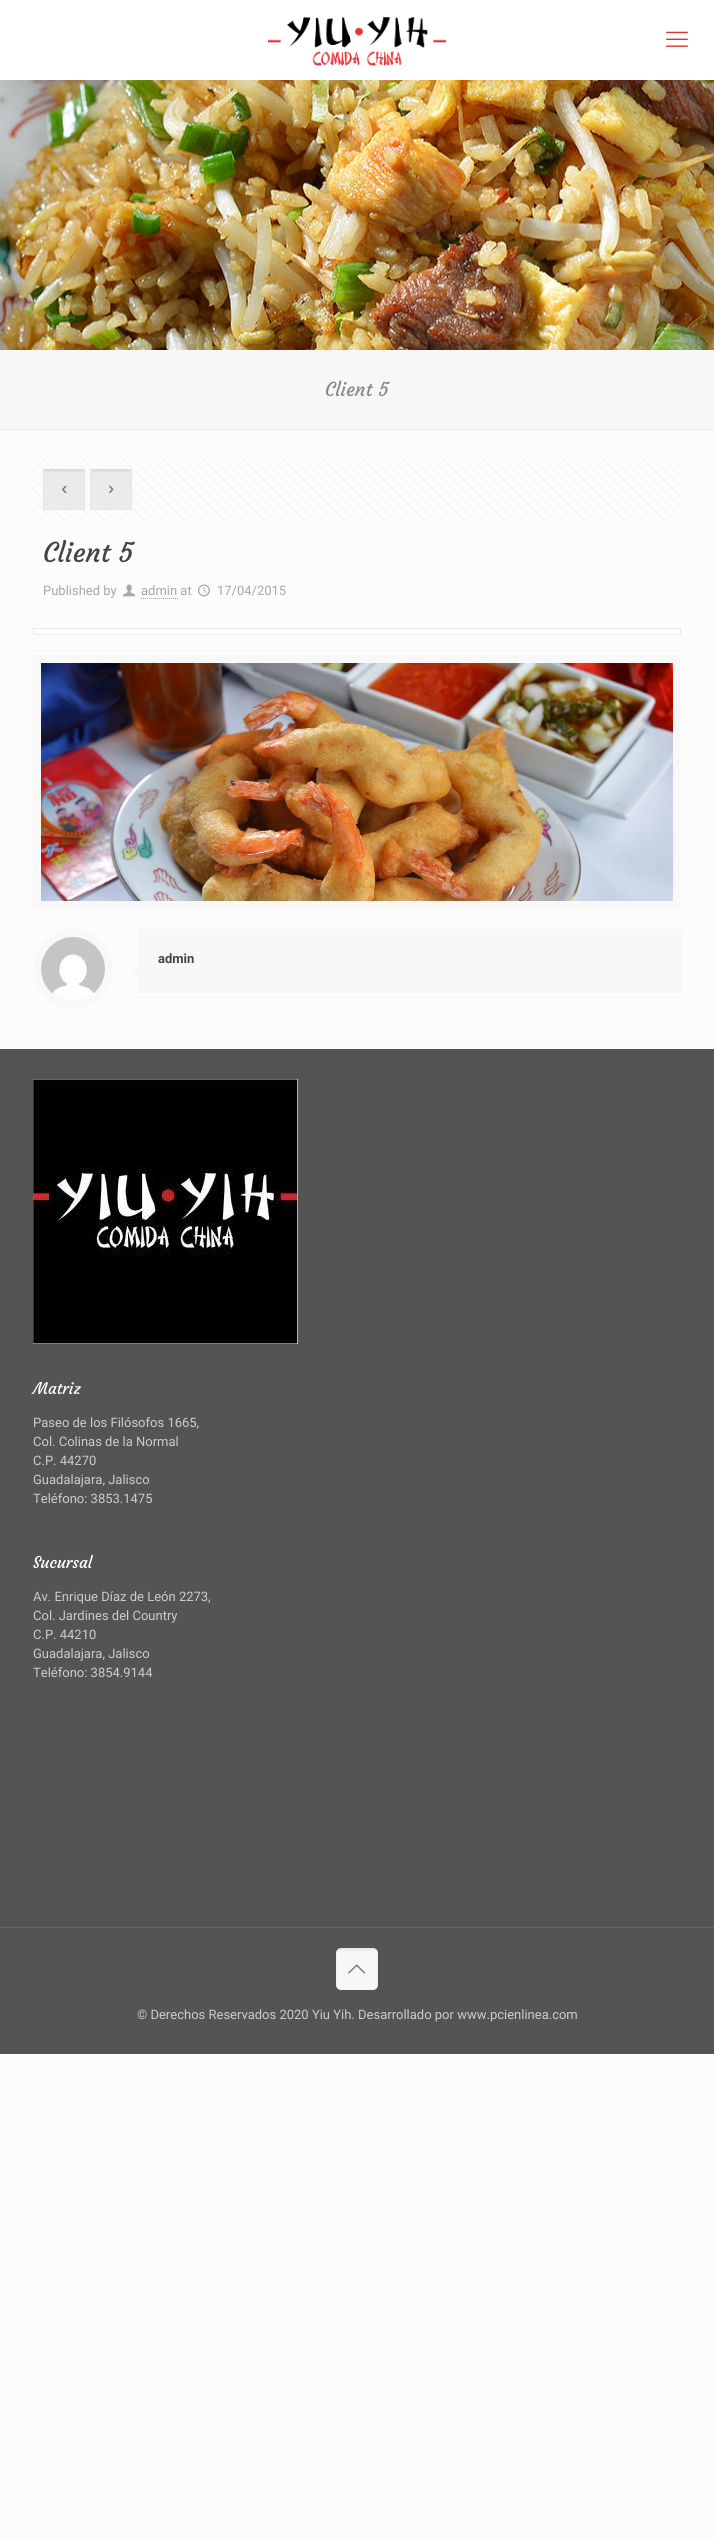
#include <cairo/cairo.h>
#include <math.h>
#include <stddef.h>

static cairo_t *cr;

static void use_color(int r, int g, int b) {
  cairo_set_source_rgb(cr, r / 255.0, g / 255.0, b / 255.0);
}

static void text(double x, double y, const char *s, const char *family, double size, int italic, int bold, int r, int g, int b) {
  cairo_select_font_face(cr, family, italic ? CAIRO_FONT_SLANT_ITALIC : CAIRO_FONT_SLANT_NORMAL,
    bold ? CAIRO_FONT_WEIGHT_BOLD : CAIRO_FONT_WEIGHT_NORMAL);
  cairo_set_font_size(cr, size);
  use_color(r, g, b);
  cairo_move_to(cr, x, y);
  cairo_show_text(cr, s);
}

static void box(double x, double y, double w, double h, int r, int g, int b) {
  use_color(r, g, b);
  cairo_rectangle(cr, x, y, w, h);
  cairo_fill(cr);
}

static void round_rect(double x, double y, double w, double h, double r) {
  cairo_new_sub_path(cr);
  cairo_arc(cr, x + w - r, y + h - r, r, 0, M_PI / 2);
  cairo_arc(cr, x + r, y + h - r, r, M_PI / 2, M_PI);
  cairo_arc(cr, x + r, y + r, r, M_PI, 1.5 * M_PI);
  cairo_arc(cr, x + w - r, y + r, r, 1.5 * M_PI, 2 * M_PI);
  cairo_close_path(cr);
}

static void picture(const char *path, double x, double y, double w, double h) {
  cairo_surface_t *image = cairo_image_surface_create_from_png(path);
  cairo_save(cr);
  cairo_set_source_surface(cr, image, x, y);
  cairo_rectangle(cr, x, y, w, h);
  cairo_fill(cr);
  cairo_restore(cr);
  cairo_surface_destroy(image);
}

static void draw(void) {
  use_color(252, 252, 252);
  cairo_paint(cr);
  picture("img_01.png", 0, 80, 714, 270);
  box(0, 0, 714, 80, 255, 255, 255);
  picture("img_02.png", 268, 16, 178, 50);
  picture("img_03.png", 666, 31, 22, 16);
  box(0, 350, 714, 79, 247, 247, 247);
  picture("img_04.png", 0, 429, 714, 2);
  picture("img_05.png", 33, 459, 648, 60);
  round_rect(43, 469, 42, 41, 5);
  cairo_fill(cr);
  cairo_set_source_rgba(cr, 0, 0, 0, 0.05);
  cairo_rectangle(cr, 44, 469, 40, 3);
  cairo_fill(cr);
  cairo_rectangle(cr, 43.5, 469.5, 41, 40);
  cairo_set_source_rgba(cr, 0, 0, 0, 0.03);
  cairo_set_line_width(cr, 1);
  cairo_stroke(cr);
  cairo_set_source_rgba(cr, 0, 0, 0, 0.05);
  cairo_rectangle(cr, 43, 469, 42, 41);
  cairo_fill(cr);
  picture("img_06.png", 62, 485, 5, 9);
  use_color(247, 247, 247);
  round_rect(90, 469, 42, 41, 5);
  cairo_fill(cr);
  cairo_set_source_rgba(cr, 0, 0, 0, 0.05);
  cairo_rectangle(cr, 91, 469, 40, 3);
  cairo_fill(cr);
  cairo_rectangle(cr, 90.5, 469.5, 41, 40);
  cairo_set_source_rgba(cr, 0, 0, 0, 0.03);
  cairo_stroke(cr);
  cairo_set_source_rgba(cr, 0, 0, 0, 0.05);
  cairo_rectangle(cr, 90, 469, 42, 41);
  cairo_fill(cr);
  picture("img_07.png", 109, 485, 5, 9);
  picture("img_08.png", 123, 584, 13, 13);
  cairo_new_path(cr);
  cairo_move_to(cr, 141, 598.5);
  cairo_line_to(cr, 178, 598.5);
  use_color(168, 168, 168);
  cairo_set_dash(cr, (double[]){1, 1}, 2, 0);
  cairo_stroke(cr);
  picture("img_09.png", 198, 584, 12, 13);
  use_color(255, 255, 255);
  cairo_rectangle(cr, 33.5, 628.5, 647, 6);
  cairo_fill_preserve(cr);
  use_color(235, 235, 235);
  cairo_set_dash(cr, NULL, 0, 0);
  cairo_stroke(cr);
  cairo_rectangle(cr, 37, 659, 640, 246);
  use_color(248, 248, 248);
  cairo_set_line_width(cr, 8);
  cairo_stroke(cr);
  picture("img_10.png", 41, 663, 632, 238);
  cairo_arc(cr, 73, 969, 36, 0, 2 * M_PI);
  cairo_stroke(cr);
  picture("img_11.png", 41, 937, 64, 57);
  box(138, 929, 543, 64, 247, 247, 247);
  cairo_new_path(cr);
  cairo_move_to(cr, 138, 964);
  cairo_line_to(cr, 138, 976);
  cairo_line_to(cr, 132, 970);
  cairo_close_path(cr);
  cairo_fill(cr);
  box(0, 1049, 714, 1005, 84, 84, 84);
  picture("img_12.png", 33, 1079, 265, 265);
  box(0, 1927, 714, 1, 101, 101, 101);
  use_color(247, 247, 247);
  round_rect(336, 1948, 42, 42, 5);
  cairo_fill(cr);
  cairo_set_source_rgba(cr, 0, 0, 0, 0.05);
  cairo_rectangle(cr, 337, 1948, 40, 3);
  cairo_fill(cr);
  cairo_rectangle(cr, 336.5, 1948.5, 41, 41);
  cairo_set_source_rgba(cr, 0, 0, 0, 0.03);
  cairo_set_line_width(cr, 1);
  cairo_stroke(cr);
  picture("img_13.png", 348, 1964, 18, 10);
  text(325, 396, "Client 5", "Courgette", 19, 0, 0, 136, 136, 136);
  text(43, 562, "Client 5", "Courgette", 27, 0, 0, 68, 68, 68);
  text(43, 595, "Published by", "Roboto", 13, 0, 0, 168, 168, 168);
  text(141, 595, "admin at", "Roboto", 13, 0, 0, 168, 168, 168);
  text(217, 595, "17/04/2015", "Roboto", 13, 0, 0, 168, 168, 168);
  text(158, 963, "admin", "Roboto", 13, 0, 1, 68, 68, 68);
  text(33, 1394, "Matriz", "Courgette", 16, 0, 0, 255, 255, 255);
  text(33, 1427, "Paseo de los Filósofos 1665,", "Roboto", 13, 0, 0, 204, 204, 204);
  text(33, 1446, "Col. Colinas de la Normal", "Roboto", 13, 0, 0, 204, 204, 204);
  text(33, 1465, "C.P. 44270", "Roboto", 13, 0, 0, 204, 204, 204);
  text(33, 1484, "Guadalajara, Jalisco", "Roboto", 13, 0, 0, 204, 204, 204);
  text(33, 1503, "Teléfono: 3853.1475", "Roboto", 13, 0, 0, 204, 204, 204);
  text(33, 1568, "Sucursal", "Courgette", 16, 0, 0, 255, 255, 255);
  text(33, 1601, "Av. Enrique Díaz de León 2273,", "Roboto", 13, 0, 0, 204, 204, 204);
  text(33, 1620, "Col. Jardines del Country", "Roboto", 13, 0, 0, 204, 204, 204);
  text(33, 1639, "C.P. 44210", "Roboto", 13, 0, 0, 204, 204, 204);
  text(33, 1658, "Guadalajara, Jalisco", "Roboto", 13, 0, 0, 204, 204, 204);
  text(33, 1677, "Teléfono: 3854.9144", "Roboto", 13, 0, 0, 204, 204, 204);
  text(137, 2019, "© Derechos Reservados 2020 Yiu Yih. Desarrollado por www.pcienlinea.com", "Roboto", 13, 0, 0, 204, 204, 204);
}

int main(void) {
  cairo_surface_t *surface = cairo_image_surface_create(CAIRO_FORMAT_RGB24, 714, 2542);
  cr = cairo_create(surface);
  cairo_font_options_t *options = cairo_font_options_create();
  cairo_font_options_set_hint_metrics(options, CAIRO_HINT_METRICS_OFF);
  cairo_font_options_set_hint_style(options, CAIRO_HINT_STYLE_NONE);
  cairo_set_font_options(cr, options);
  cairo_set_miter_limit(cr, 4);
  draw();
  cairo_surface_write_to_png(surface, "out.png");
  cairo_font_options_destroy(options);
  cairo_destroy(cr);
  cairo_surface_destroy(surface);
  return 0;
}
